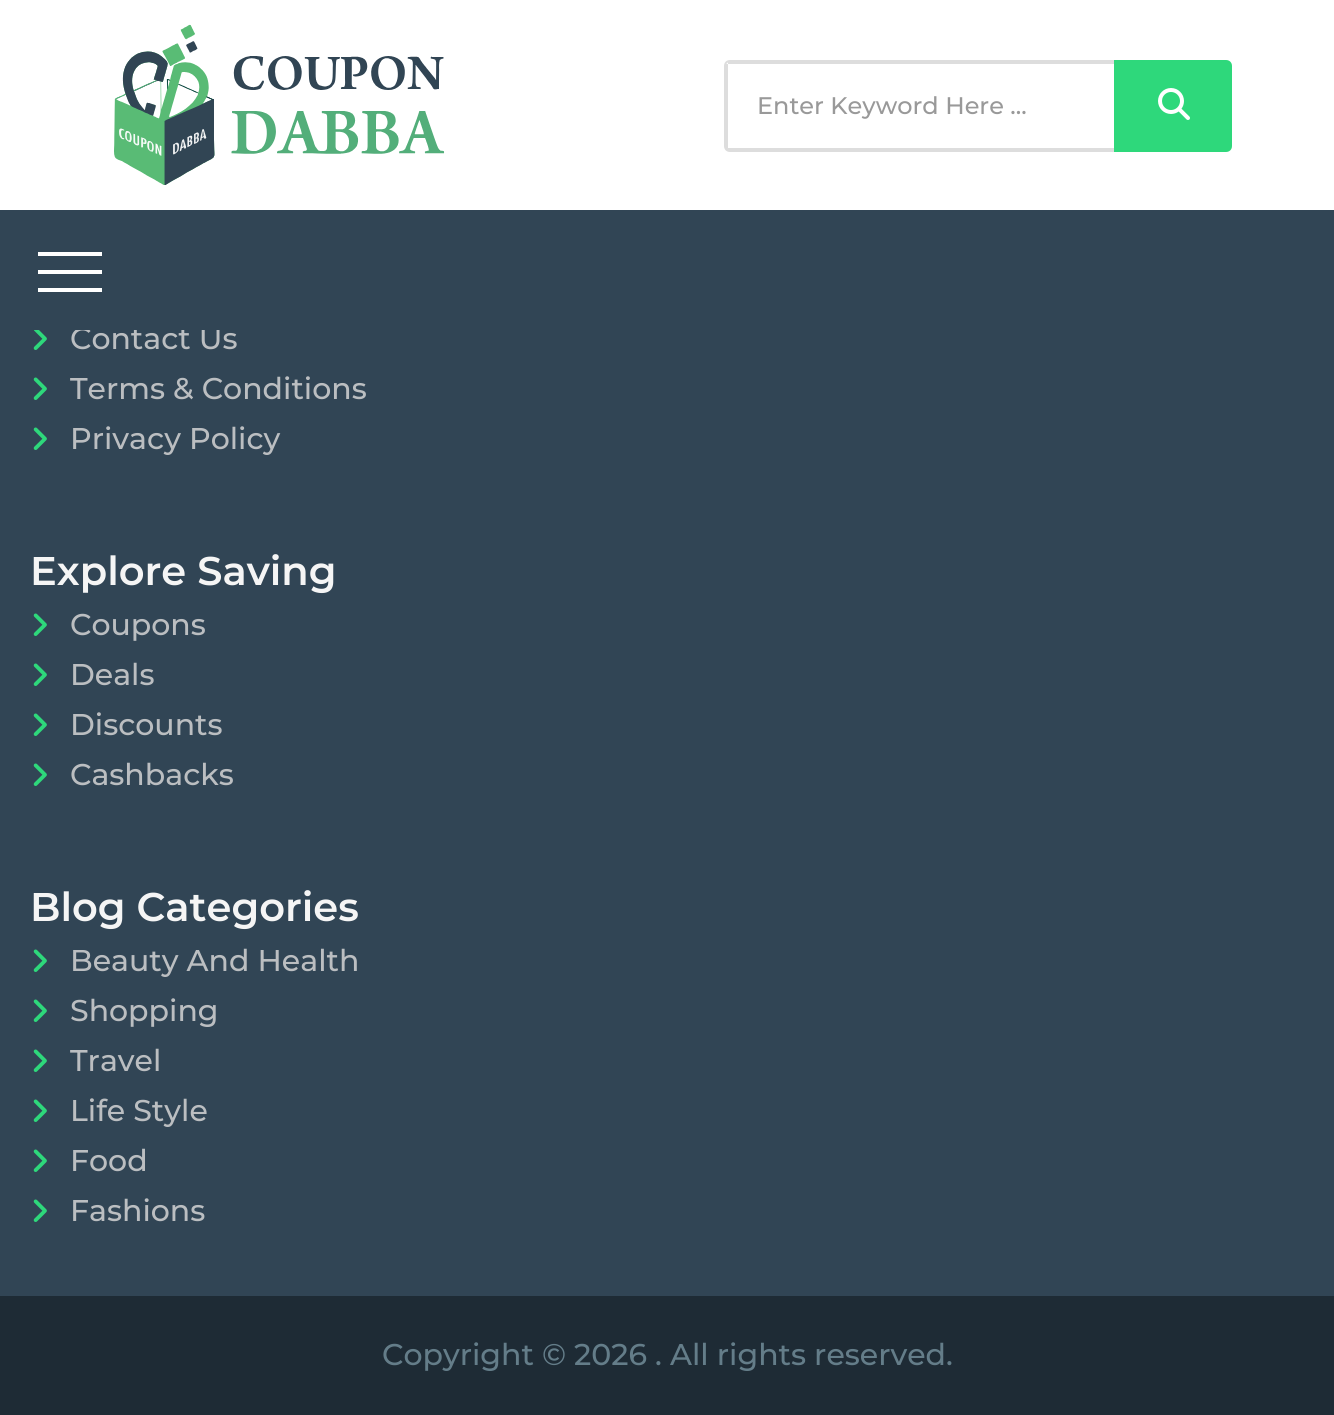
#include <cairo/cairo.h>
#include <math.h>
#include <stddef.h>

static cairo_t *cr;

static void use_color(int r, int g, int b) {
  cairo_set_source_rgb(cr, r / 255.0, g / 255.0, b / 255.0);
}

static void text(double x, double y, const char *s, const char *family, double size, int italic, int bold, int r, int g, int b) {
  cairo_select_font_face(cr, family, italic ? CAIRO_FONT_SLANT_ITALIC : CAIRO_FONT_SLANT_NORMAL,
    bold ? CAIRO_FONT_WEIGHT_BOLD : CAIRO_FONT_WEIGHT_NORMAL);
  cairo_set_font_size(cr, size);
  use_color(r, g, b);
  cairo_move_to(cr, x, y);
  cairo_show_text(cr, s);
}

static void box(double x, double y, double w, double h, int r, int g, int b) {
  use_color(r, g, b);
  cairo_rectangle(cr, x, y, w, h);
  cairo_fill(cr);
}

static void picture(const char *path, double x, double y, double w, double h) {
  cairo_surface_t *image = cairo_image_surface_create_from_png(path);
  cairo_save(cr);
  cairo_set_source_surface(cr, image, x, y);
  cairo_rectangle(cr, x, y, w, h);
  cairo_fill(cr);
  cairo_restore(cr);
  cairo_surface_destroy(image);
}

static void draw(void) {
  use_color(30, 43, 53);
  cairo_paint(cr);
  box(0, 0, 1334, 210, 255, 255, 255);
  picture("img_01.png", 114, 24, 331, 161);
  cairo_new_path(cr);
  cairo_move_to(cr, 730, 61);
  cairo_line_to(cr, 1117, 61);
  cairo_line_to(cr, 1117, 151);
  cairo_line_to(cr, 730, 151);
  cairo_curve_to(cr, 727, 151, 725, 149, 725, 146);
  cairo_line_to(cr, 725, 66);
  cairo_curve_to(cr, 725, 63, 727, 61, 730, 61);
  cairo_close_path(cr);
  use_color(221, 221, 221);
  cairo_stroke(cr);
  box(728, 62, 390, 2, 221, 221, 221);
  box(728, 148, 390, 2, 221, 221, 221);
  box(726, 64, 2, 86, 221, 221, 221);
  use_color(46, 216, 123);
  cairo_new_path(cr);
  cairo_move_to(cr, 1114, 60);
  cairo_line_to(cr, 1226, 60);
  cairo_curve_to(cr, 1229.5, 60, 1232, 62.5, 1232, 66);
  cairo_line_to(cr, 1232, 146);
  cairo_curve_to(cr, 1232, 149.5, 1229.5, 152, 1226, 152);
  cairo_line_to(cr, 1114, 152);
  cairo_close_path(cr);
  cairo_fill(cr);
  picture("img_02.png", 1158, 88, 32, 32);
  box(0, 330, 1334, 966, 49, 69, 85);
  picture("img_03.png", 33, 330, 14, 20);
  picture("img_04.png", 33, 377, 14, 23);
  picture("img_04.png", 33, 427, 14, 23);
  picture("img_04.png", 33, 613, 14, 23);
  picture("img_04.png", 33, 663, 14, 23);
  picture("img_04.png", 33, 713, 14, 23);
  picture("img_04.png", 33, 763, 14, 23);
  picture("img_04.png", 33, 949, 14, 23);
  picture("img_04.png", 33, 999, 14, 23);
  picture("img_04.png", 33, 1049, 14, 23);
  picture("img_04.png", 33, 1099, 14, 23);
  picture("img_04.png", 33, 1149, 14, 23);
  picture("img_04.png", 33, 1199, 14, 23);
  text(757, 114, "Enter Keyword Here ...", "Montserrat Medium", 24, 0, 0, 153, 153, 153);
  text(70, 349, "Contact Us", "Montserrat Medium", 30, 0, 0, 187, 190, 193);
  box(0, 210, 1334, 120, 49, 69, 85);
  box(38, 288, 64, 4, 255, 255, 255);
  box(38, 270, 64, 4, 255, 255, 255);
  box(38, 252, 64, 4, 255, 255, 255);
  text(70, 399, "Terms & Conditions", "Montserrat Medium", 30, 0, 0, 187, 190, 193);
  text(70, 449, "Privacy Policy", "Montserrat Medium", 30, 0, 0, 187, 190, 193);
  text(30, 585, "Explore Saving", "Montserrat SemiBold", 40, 0, 0, 245, 245, 245);
  text(70, 635, "Coupons", "Montserrat Medium", 30, 0, 0, 187, 190, 193);
  text(70, 685, "Deals", "Montserrat Medium", 30, 0, 0, 187, 190, 193);
  text(70, 735, "Discounts", "Montserrat Medium", 30, 0, 0, 187, 190, 193);
  text(70, 785, "Cashbacks", "Montserrat Medium", 30, 0, 0, 187, 190, 193);
  text(30, 921, "Blog Categories", "Montserrat SemiBold", 40, 0, 0, 245, 245, 245);
  text(70, 971, "Beauty And Health", "Montserrat Medium", 30, 0, 0, 187, 190, 193);
  text(70, 1021, "Shopping", "Montserrat Medium", 30, 0, 0, 187, 190, 193);
  text(70, 1071, "Travel", "Montserrat Medium", 30, 0, 0, 187, 190, 193);
  text(70, 1121, "Life Style", "Montserrat Medium", 30, 0, 0, 187, 190, 193);
  text(70, 1171, "Food", "Montserrat Medium", 30, 0, 0, 187, 190, 193);
  text(70, 1221, "Fashions", "Montserrat Medium", 30, 0, 0, 187, 190, 193);
  text(382, 1365, "Copyright © 2026 . All rights reserved.", "Montserrat Medium", 30, 0, 0, 100, 125, 137);
}

int main(void) {
  cairo_surface_t *surface = cairo_image_surface_create(CAIRO_FORMAT_RGB24, 1334, 1415);
  cr = cairo_create(surface);
  cairo_font_options_t *options = cairo_font_options_create();
  cairo_font_options_set_hint_metrics(options, CAIRO_HINT_METRICS_OFF);
  cairo_font_options_set_hint_style(options, CAIRO_HINT_STYLE_NONE);
  cairo_set_font_options(cr, options);
  cairo_set_miter_limit(cr, 4);
  draw();
  cairo_surface_write_to_png(surface, "out.png");
  cairo_font_options_destroy(options);
  cairo_destroy(cr);
  cairo_surface_destroy(surface);
  return 0;
}
